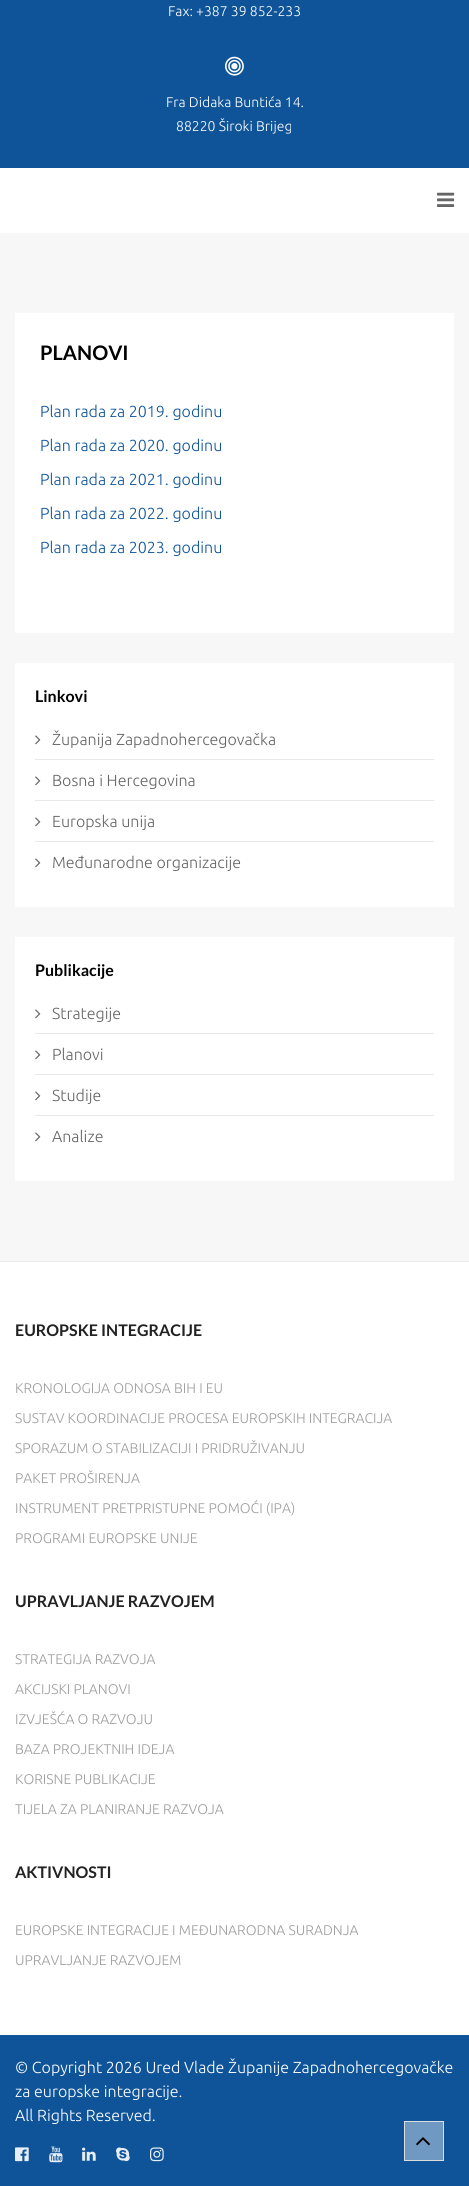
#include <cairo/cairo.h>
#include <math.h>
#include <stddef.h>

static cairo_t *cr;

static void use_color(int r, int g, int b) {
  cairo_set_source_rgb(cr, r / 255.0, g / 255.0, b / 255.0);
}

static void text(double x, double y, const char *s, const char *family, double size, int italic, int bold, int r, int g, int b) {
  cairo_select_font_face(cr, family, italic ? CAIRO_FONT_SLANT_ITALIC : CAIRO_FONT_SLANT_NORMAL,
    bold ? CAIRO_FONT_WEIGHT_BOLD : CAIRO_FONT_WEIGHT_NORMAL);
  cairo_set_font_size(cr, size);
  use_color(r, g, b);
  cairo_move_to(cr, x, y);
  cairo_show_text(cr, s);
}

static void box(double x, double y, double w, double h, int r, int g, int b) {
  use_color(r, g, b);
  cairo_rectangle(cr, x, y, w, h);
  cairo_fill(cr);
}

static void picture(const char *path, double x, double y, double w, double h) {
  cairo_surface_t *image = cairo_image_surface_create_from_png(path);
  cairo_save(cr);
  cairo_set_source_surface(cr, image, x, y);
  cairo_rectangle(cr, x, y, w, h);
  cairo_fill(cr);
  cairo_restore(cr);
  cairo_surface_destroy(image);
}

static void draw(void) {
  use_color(247, 247, 247);
  cairo_paint(cr);
  box(0, 0, 469, 168, 15, 84, 153);
  picture("img_01.png", 225, 56, 19, 20);
  box(0, 168, 469, 65, 255, 255, 255);
  picture("img_02.png", 437, 192, 18, 15);
  box(15, 313, 439, 320, 255, 255, 255);
  box(15, 663, 439, 244, 255, 255, 255);
  box(35, 759, 399, 1, 232, 232, 232);
  picture("img_03.png", 35, 735, 6, 10);
  box(35, 800, 399, 1, 232, 232, 232);
  picture("img_03.png", 35, 776, 6, 10);
  box(35, 841, 399, 1, 232, 232, 232);
  picture("img_03.png", 35, 817, 6, 10);
  picture("img_03.png", 35, 858, 6, 10);
  box(15, 937, 439, 244, 255, 255, 255);
  box(35, 1033, 399, 1, 232, 232, 232);
  picture("img_03.png", 35, 1009, 6, 10);
  box(35, 1074, 399, 1, 232, 232, 232);
  picture("img_03.png", 35, 1050, 6, 10);
  box(35, 1115, 399, 1, 232, 232, 232);
  picture("img_03.png", 35, 1091, 6, 10);
  picture("img_03.png", 35, 1132, 6, 10);
  box(0, 1262, 469, 773, 255, 255, 255);
  box(0, 1261, 469, 1, 235, 234, 230);
  box(0, 2035, 469, 151, 15, 84, 153);
  picture("img_04.png", 15, 2147, 14, 15);
  picture("img_05.png", 49, 2146, 14, 17);
  picture("img_06.png", 82, 2147, 14, 14);
  picture("img_07.png", 116, 2147, 14, 15);
  picture("img_08.png", 150, 2147, 14, 15);
  use_color(111, 152, 194);
  cairo_rectangle(cr, 404.5, 2121.5, 39, 39);
  cairo_fill_preserve(cr);
  use_color(221, 221, 221);
  cairo_set_line_width(cr, 1);
  cairo_stroke(cr);
  picture("img_09.png", 416, 2137, 14, 9);
  text(168, 16, "Fax: +387 39 852-233", "Ubuntu Light", 14, 0, 0, 255, 255, 255);
  text(166, 107, "Fra Didaka Buntića 14.", "Ubuntu Light", 14, 0, 0, 255, 255, 255);
  text(176, 131, "88220 Široki Brijeg", "Ubuntu Light", 14, 0, 0, 255, 255, 255);
  text(40, 360, "PLANOVI", "Lato", 20, 0, 1, 0, 0, 0);
  text(40, 417, "Plan rada za 2019. godinu", "Ubuntu Light", 16, 0, 0, 15, 84, 153);
  text(40, 451, "Plan rada za 2020. godinu", "Ubuntu Light", 16, 0, 0, 15, 84, 153);
  text(40, 485, "Plan rada za 2021. godinu", "Ubuntu Light", 16, 0, 0, 15, 84, 153);
  text(40, 519, "Plan rada za 2022. godinu", "Ubuntu Light", 16, 0, 0, 15, 84, 153);
  text(40, 553, "Plan rada za 2023. godinu", "Ubuntu Light", 16, 0, 0, 15, 84, 153);
  text(35, 702, "Linkovi", "Lato", 16, 0, 1, 0, 0, 0);
  text(52, 745, "Županija Zapadnohercegovačka", "Ubuntu Light", 16, 0, 0, 102, 102, 102);
  text(52, 786, "Bosna i Hercegovina", "Ubuntu Light", 16, 0, 0, 102, 102, 102);
  text(52, 827, "Europska unija", "Ubuntu Light", 16, 0, 0, 102, 102, 102);
  text(52, 868, "Međunarodne organizacije", "Ubuntu Light", 16, 0, 0, 102, 102, 102);
  text(35, 976, "Publikacije", "Lato", 16, 0, 1, 0, 0, 0);
  text(52, 1019, "Strategije", "Ubuntu Light", 16, 0, 0, 102, 102, 102);
  text(52, 1060, "Planovi", "Ubuntu Light", 16, 0, 0, 102, 102, 102);
  text(52, 1101, "Studije", "Ubuntu Light", 16, 0, 0, 102, 102, 102);
  text(52, 1142, "Analize", "Ubuntu Light", 16, 0, 0, 102, 102, 102);
  text(15, 1336, "EUROPSKE INTEGRACIJE", "Lato", 16, 0, 1, 34, 34, 34);
  text(15, 1393, "KRONOLOGIJA ODNOSA BIH I EU", "Ubuntu Light", 14, 0, 0, 158, 158, 158);
  text(15, 1423, "SUSTAV KOORDINACIJE PROCESA EUROPSKIH INTEGRACIJA", "Ubuntu Light", 14, 0, 0, 158, 158, 158);
  text(15, 1453, "SPORAZUM O STABILIZACIJI I PRIDRUŽIVANJU", "Ubuntu Light", 14, 0, 0, 158, 158, 158);
  text(15, 1483, "PAKET PROŠIRENJA", "Ubuntu Light", 14, 0, 0, 158, 158, 158);
  text(15, 1513, "INSTRUMENT PRETPRISTUPNE POMOĆI (IPA)", "Ubuntu Light", 14, 0, 0, 158, 158, 158);
  text(15, 1543, "PROGRAMI EUROPSKE UNIJE", "Ubuntu Light", 14, 0, 0, 158, 158, 158);
  text(15, 1607, "UPRAVLJANJE RAZVOJEM", "Lato", 16, 0, 1, 34, 34, 34);
  text(15, 1664, "STRATEGIJA RAZVOJA", "Ubuntu Light", 14, 0, 0, 158, 158, 158);
  text(15, 1694, "AKCIJSKI PLANOVI", "Ubuntu Light", 14, 0, 0, 158, 158, 158);
  text(15, 1724, "IZVJEŠĆA O RAZVOJU", "Ubuntu Light", 14, 0, 0, 158, 158, 158);
  text(15, 1754, "BAZA PROJEKTNIH IDEJA", "Ubuntu Light", 14, 0, 0, 158, 158, 158);
  text(15, 1784, "KORISNE PUBLIKACIJE", "Ubuntu Light", 14, 0, 0, 158, 158, 158);
  text(15, 1814, "TIJELA ZA PLANIRANJE RAZVOJA", "Ubuntu Light", 14, 0, 0, 158, 158, 158);
  text(15, 1878, "AKTIVNOSTI", "Lato", 16, 0, 1, 34, 34, 34);
  text(15, 1935, "EUROPSKE INTEGRACIJE I MEĐUNARODNA SURADNJA", "Ubuntu Light", 14, 0, 0, 158, 158, 158);
  text(15, 1965, "UPRAVLJANJE RAZVOJEM", "Ubuntu Light", 14, 0, 0, 158, 158, 158);
  text(15, 2073, "© Copyright 2026 Ured Vlade Županije Zapadnohercegovačke", "Ubuntu Light", 16, 0, 0, 255, 255, 255);
  text(15, 2097, "za europske integracije.", "Ubuntu Light", 16, 0, 0, 255, 255, 255);
  text(15, 2121, "All Rights Reserved.", "Ubuntu Light", 16, 0, 0, 255, 255, 255);
}

int main(void) {
  cairo_surface_t *surface = cairo_image_surface_create(CAIRO_FORMAT_RGB24, 469, 2186);
  cr = cairo_create(surface);
  cairo_font_options_t *options = cairo_font_options_create();
  cairo_font_options_set_hint_metrics(options, CAIRO_HINT_METRICS_OFF);
  cairo_font_options_set_hint_style(options, CAIRO_HINT_STYLE_NONE);
  cairo_set_font_options(cr, options);
  cairo_set_miter_limit(cr, 4);
  draw();
  cairo_surface_write_to_png(surface, "out.png");
  cairo_font_options_destroy(options);
  cairo_destroy(cr);
  cairo_surface_destroy(surface);
  return 0;
}
